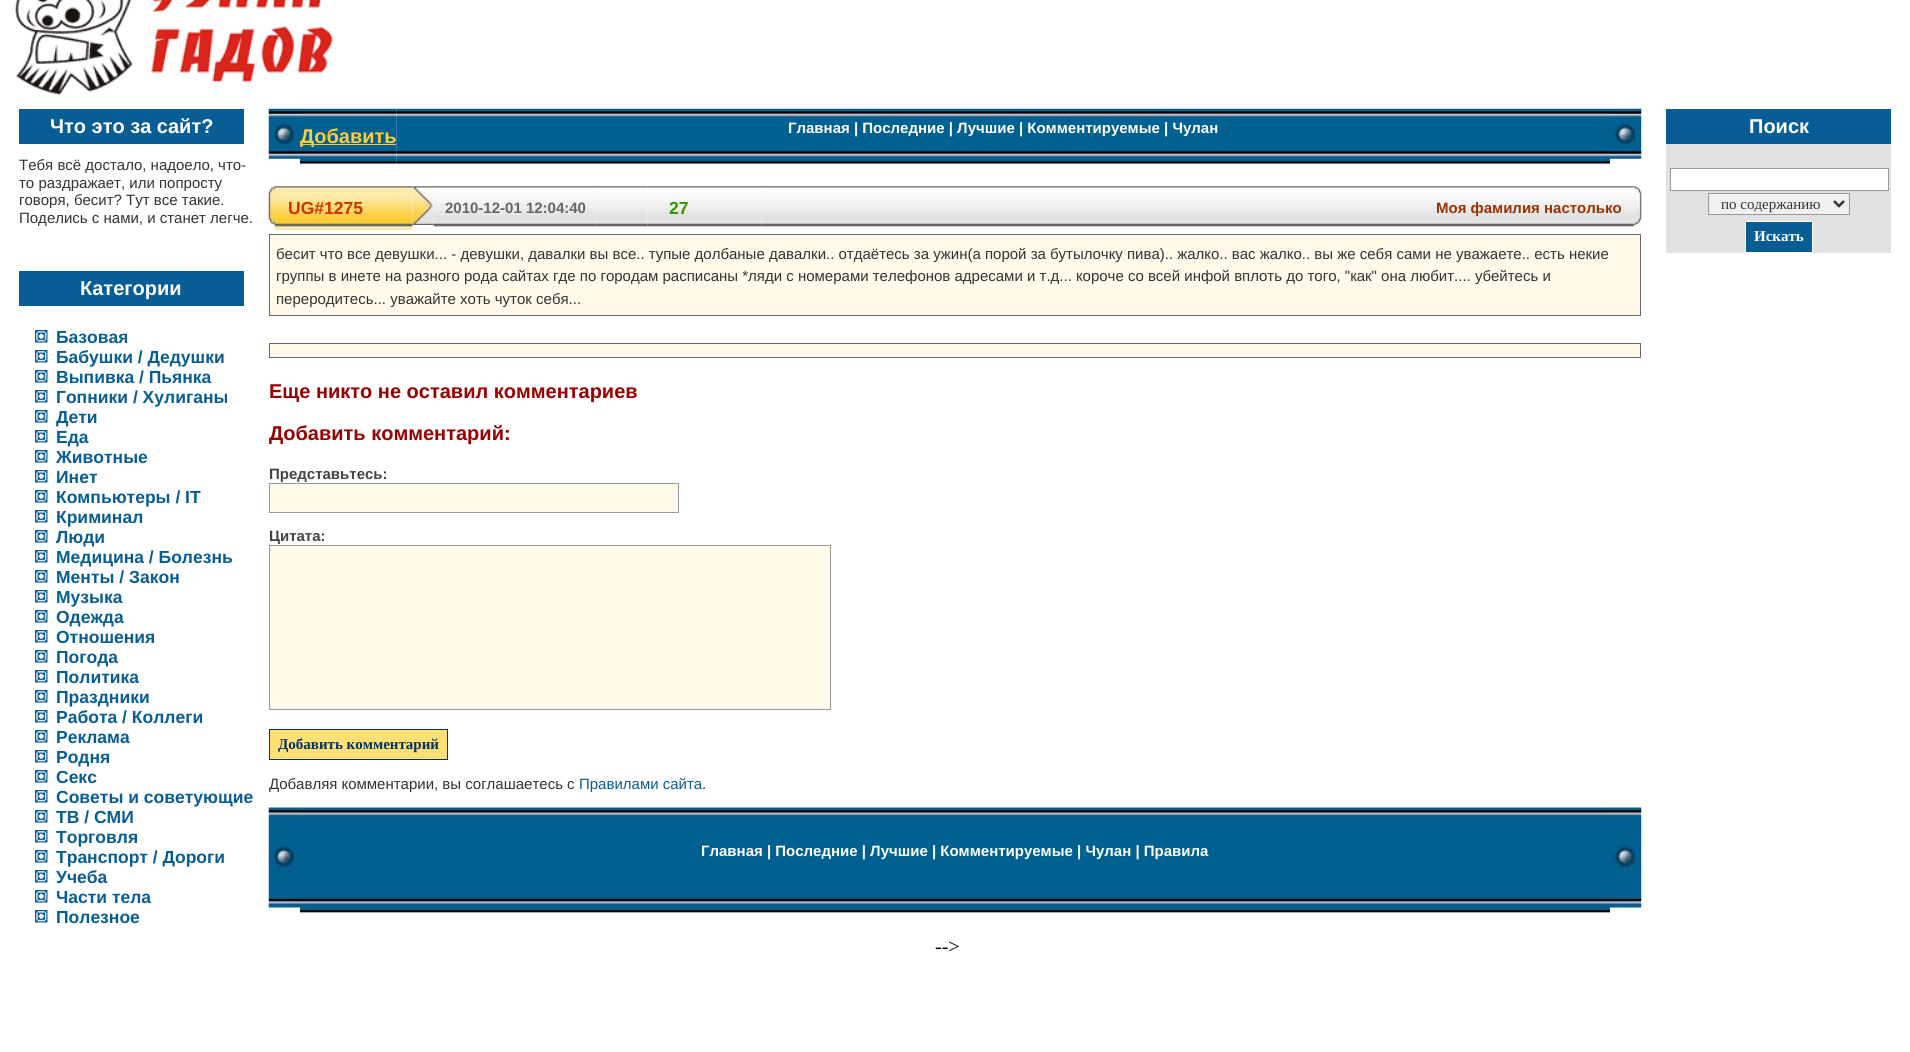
#include <cairo/cairo.h>
#include <math.h>
#include <stddef.h>

static cairo_t *cr;

static void use_color(int r, int g, int b) {
  cairo_set_source_rgb(cr, r / 255.0, g / 255.0, b / 255.0);
}

static void text(double x, double y, const char *s, const char *family, double size, int italic, int bold, int r, int g, int b) {
  cairo_select_font_face(cr, family, italic ? CAIRO_FONT_SLANT_ITALIC : CAIRO_FONT_SLANT_NORMAL,
    bold ? CAIRO_FONT_WEIGHT_BOLD : CAIRO_FONT_WEIGHT_NORMAL);
  cairo_set_font_size(cr, size);
  use_color(r, g, b);
  cairo_move_to(cr, x, y);
  cairo_show_text(cr, s);
}

static void box(double x, double y, double w, double h, int r, int g, int b) {
  use_color(r, g, b);
  cairo_rectangle(cr, x, y, w, h);
  cairo_fill(cr);
}

static void picture(const char *path, double x, double y, double w, double h) {
  cairo_surface_t *image = cairo_image_surface_create_from_png(path);
  cairo_save(cr);
  cairo_set_source_surface(cr, image, x, y);
  cairo_rectangle(cr, x, y, w, h);
  cairo_fill(cr);
  cairo_restore(cr);
  cairo_surface_destroy(image);
}

static void draw(void) {
  use_color(255, 255, 255);
  cairo_paint(cr);
  picture("img_01.png", 15, 0, 318, 96);
  box(19, 109, 225, 35, 8, 93, 148);
  box(19, 271, 225, 35, 8, 93, 148);
  picture("img_02.png", 35, 330, 13, 13);
  picture("img_02.png", 35, 350, 13, 13);
  picture("img_02.png", 35, 370, 13, 13);
  picture("img_02.png", 35, 390, 13, 13);
  picture("img_02.png", 35, 410, 13, 13);
  picture("img_02.png", 35, 430, 13, 13);
  picture("img_02.png", 35, 450, 13, 13);
  picture("img_02.png", 35, 470, 13, 13);
  picture("img_02.png", 35, 490, 13, 13);
  picture("img_02.png", 35, 510, 13, 13);
  picture("img_02.png", 35, 530, 13, 13);
  picture("img_02.png", 35, 550, 13, 13);
  picture("img_02.png", 35, 570, 13, 13);
  picture("img_02.png", 35, 590, 13, 13);
  picture("img_02.png", 35, 610, 13, 13);
  picture("img_02.png", 35, 630, 13, 13);
  picture("img_02.png", 35, 650, 13, 13);
  picture("img_02.png", 35, 670, 13, 13);
  picture("img_02.png", 35, 690, 13, 13);
  picture("img_03.png", 35, 710, 13, 13);
  picture("img_02.png", 35, 730, 13, 13);
  picture("img_02.png", 35, 750, 13, 13);
  picture("img_02.png", 35, 770, 13, 13);
  picture("img_02.png", 35, 790, 13, 13);
  picture("img_02.png", 35, 810, 13, 13);
  picture("img_02.png", 35, 830, 13, 13);
  picture("img_02.png", 35, 850, 13, 13);
  picture("img_02.png", 35, 870, 13, 13);
  picture("img_02.png", 35, 890, 13, 13);
  picture("img_02.png", 35, 910, 13, 13);
  picture("img_04.png", 268, 108, 32, 51);
  picture("img_05.png", 300, 108, 97, 56);
  box(300, 144, 96, 1, 255, 204, 51);
  picture("img_06.png", 396, 108, 1214, 56);
  picture("img_07.png", 1610, 108, 32, 51);
  picture("img_08.png", 268, 186, 7, 39);
  picture("img_09.png", 275, 186, 138, 44);
  picture("img_11.png", 433, 186, 164, 41);
  picture("img_10.png", 412, 186, 22, 39);
  picture("img_12.png", 596, 186, 52, 41);
  picture("img_13.png", 647, 186, 63, 41);
  picture("img_14.png", 710, 186, 52, 41);
  picture("img_15.png", 761, 186, 873, 41);
  picture("img_16.png", 1633, 186, 9, 39);
  use_color(255, 250, 234);
  cairo_rectangle(cr, 269.5, 234.5, 1371, 81);
  cairo_fill_preserve(cr);
  use_color(102, 102, 102);
  cairo_set_line_width(cr, 1);
  cairo_stroke(cr);
  use_color(255, 250, 234);
  cairo_rectangle(cr, 269.5, 343.5, 1371, 14);
  cairo_fill_preserve(cr);
  use_color(102, 102, 102);
  cairo_stroke(cr);
  use_color(255, 250, 234);
  cairo_rectangle(cr, 269.5, 483.5, 409, 29);
  cairo_fill_preserve(cr);
  use_color(153, 153, 153);
  cairo_stroke(cr);
  use_color(255, 250, 234);
  cairo_rectangle(cr, 269.5, 545.5, 561, 164);
  cairo_fill_preserve(cr);
  use_color(153, 153, 153);
  cairo_stroke(cr);
  use_color(255, 224, 116);
  cairo_rectangle(cr, 269.5, 729.5, 178, 30);
  cairo_fill_preserve(cr);
  use_color(0, 50, 102);
  cairo_stroke(cr);
  picture("img_17.png", 268, 807, 32, 101);
  picture("img_18.png", 300, 807, 1310, 106);
  picture("img_19.png", 1610, 807, 32, 101);
  box(1666, 109, 225, 35, 8, 93, 148);
  box(1666, 144, 225, 109, 225, 225, 225);
  use_color(255, 255, 255);
  cairo_rectangle(cr, 1670.5, 168.5, 218, 22);
  cairo_fill_preserve(cr);
  use_color(153, 153, 153);
  cairo_stroke(cr);
  use_color(239, 239, 239);
  cairo_rectangle(cr, 1708.5, 193.5, 141, 21);
  cairo_fill_preserve(cr);
  use_color(153, 153, 153);
  cairo_stroke(cr);
  cairo_new_path(cr);
  cairo_move_to(cr, 1834, 201);
  cairo_line_to(cr, 1839, 206);
  cairo_line_to(cr, 1844, 201);
  use_color(51, 51, 51);
  cairo_set_line_width(cr, 2.5);
  cairo_stroke(cr);
  use_color(8, 93, 148);
  cairo_rectangle(cr, 1745.5, 221.5, 67, 31);
  cairo_fill_preserve(cr);
  use_color(255, 255, 255);
  cairo_set_line_width(cr, 1);
  cairo_stroke(cr);
  text(50, 133, "Что это за сайт?", "Liberation Sans", 20, 0, 1, 255, 255, 255);
  text(19, 170, "Тебя всё достало, надоело, что-", "Liberation Sans", 15, 0, 0, 51, 51, 51);
  text(19, 188, "то раздражает, или попросту", "Liberation Sans", 15, 0, 0, 51, 51, 51);
  text(19, 205, "говоря, бесит? Тут все такие.", "Liberation Sans", 15, 0, 0, 51, 51, 51);
  text(19, 223, "Поделись с нами, и станет легче.", "Liberation Sans", 15, 0, 0, 51, 51, 51);
  text(80, 295, "Категории", "Liberation Sans", 20, 0, 1, 255, 255, 255);
  text(56, 343, "Базовая", "Liberation Sans", 17.5, 0, 1, 8, 93, 148);
  text(56, 363, "Бабушки / Дедушки", "Liberation Sans", 17.5, 0, 1, 8, 93, 148);
  text(56, 383, "Выпивка / Пьянка", "Liberation Sans", 17.5, 0, 1, 8, 93, 148);
  text(56, 403, "Гопники / Хулиганы", "Liberation Sans", 17.5, 0, 1, 8, 93, 148);
  text(56, 423, "Дети", "Liberation Sans", 17.5, 0, 1, 8, 93, 148);
  text(56, 443, "Еда", "Liberation Sans", 17.5, 0, 1, 8, 93, 148);
  text(56, 463, "Животные", "Liberation Sans", 17.5, 0, 1, 8, 93, 148);
  text(56, 483, "Инет", "Liberation Sans", 17.5, 0, 1, 8, 93, 148);
  text(56, 503, "Компьютеры / IT", "Liberation Sans", 17.5, 0, 1, 8, 93, 148);
  text(56, 523, "Криминал", "Liberation Sans", 17.5, 0, 1, 8, 93, 148);
  text(56, 543, "Люди", "Liberation Sans", 17.5, 0, 1, 8, 93, 148);
  text(56, 563, "Медицина / Болезнь", "Liberation Sans", 17.5, 0, 1, 8, 93, 148);
  text(56, 583, "Менты / Закон", "Liberation Sans", 17.5, 0, 1, 8, 93, 148);
  text(56, 603, "Музыка", "Liberation Sans", 17.5, 0, 1, 8, 93, 148);
  text(56, 623, "Одежда", "Liberation Sans", 17.5, 0, 1, 8, 93, 148);
  text(56, 643, "Отношения", "Liberation Sans", 17.5, 0, 1, 8, 93, 148);
  text(56, 663, "Погода", "Liberation Sans", 17.5, 0, 1, 8, 93, 148);
  text(56, 683, "Политика", "Liberation Sans", 17.5, 0, 1, 8, 93, 148);
  text(56, 703, "Праздники", "Liberation Sans", 17.5, 0, 1, 8, 93, 148);
  text(56, 723, "Работа / Коллеги", "Liberation Sans", 17.5, 0, 1, 8, 93, 148);
  text(56, 743, "Реклама", "Liberation Sans", 17.5, 0, 1, 8, 93, 148);
  text(56, 763, "Родня", "Liberation Sans", 17.5, 0, 1, 8, 93, 148);
  text(56, 783, "Секс", "Liberation Sans", 17.5, 0, 1, 8, 93, 148);
  text(56, 803, "Советы и советующие", "Liberation Sans", 17.5, 0, 1, 8, 93, 148);
  text(56, 823, "ТВ / СМИ", "Liberation Sans", 17.5, 0, 1, 8, 93, 148);
  text(56, 843, "Торговля", "Liberation Sans", 17.5, 0, 1, 8, 93, 148);
  text(56, 863, "Транспорт / Дороги", "Liberation Sans", 17.5, 0, 1, 8, 93, 148);
  text(56, 883, "Учеба", "Liberation Sans", 17.5, 0, 1, 8, 93, 148);
  text(56, 903, "Части тела", "Liberation Sans", 17.5, 0, 1, 8, 93, 148);
  text(56, 923, "Полезное", "Liberation Sans", 17.5, 0, 1, 8, 93, 148);
  text(300, 143, "Добавить", "Liberation Sans", 20, 0, 1, 255, 204, 51);
  text(788, 133, "Главная | Последние | Лучшие | Комментируемые | Чулан", "Liberation Sans", 15, 0, 1, 255, 255, 255);
  text(288, 214, "UG#1275", "Liberation Sans", 17.5, 0, 1, 204, 51, 0);
  text(445, 213, "2010-12-01 12:04:40", "Liberation Sans", 15, 0, 1, 102, 102, 102);
  text(669, 214, "27", "Liberation Sans", 17.5, 0, 1, 51, 153, 0);
  text(1436, 213, "Моя фамилия настолько", "Liberation Sans", 15, 0, 1, 153, 51, 0);
  text(276, 259, "бесит что все девушки... - девушки, давалки вы все.. тупые долбаные давалки.. отдаётесь за ужин(а порой за бутылочку пива).. жалко.. вас жалко.. вы же себя сами не уважаете.. есть некие", "Liberation Sans", 15, 0, 0, 51, 51, 51);
  text(276, 281, "группы в инете на разного рода сайтах где по городам расписаны *ляди с номерами телефонов адресами и т.д... короче со всей инфой вплоть до того, \"как\" она любит.... убейтесь и", "Liberation Sans", 15, 0, 0, 51, 51, 51);
  text(276, 304, "переродитесь... уважайте хоть чуток себя...", "Liberation Sans", 15, 0, 0, 51, 51, 51);
  text(269, 398, "Еще никто не оставил комментариев", "Liberation Sans", 20, 0, 1, 153, 0, 0);
  text(269, 440, "Добавить комментарий:", "Liberation Sans", 20, 0, 1, 153, 0, 0);
  text(269, 479, "Представьтесь:", "Liberation Sans", 15, 0, 1, 68, 68, 68);
  text(269, 541, "Цитата:", "Liberation Sans", 15, 0, 1, 68, 68, 68);
  text(278, 749, "Добавить комментарий", "Liberation Serif", 15, 0, 1, 0, 50, 102);
  text(269, 789, "Добавляя комментарии, вы соглашаетесь с", "Liberation Sans", 15, 0, 0, 51, 51, 51);
  text(579, 789, "Правилами сайта", "Liberation Sans", 15, 0, 0, 8, 93, 148);
  text(702, 789, ".", "Liberation Sans", 15, 0, 0, 51, 51, 51);
  text(701, 856, "Главная | Последние | Лучшие | Комментируемые | Чулан | Правила", "Liberation Sans", 15, 0, 1, 255, 255, 255);
  text(935, 953, "-->", "Liberation Serif", 20, 0, 0, 0, 0, 0);
  text(1749, 133, "Поиск", "Liberation Sans", 20, 0, 1, 255, 255, 255);
  text(1721, 209, "по содержанию", "Liberation Serif", 15, 0, 0, 51, 51, 51);
  text(1754, 241, "Искать", "Liberation Serif", 15, 0, 1, 255, 255, 255);
}

int main(void) {
  cairo_surface_t *surface = cairo_image_surface_create(CAIRO_FORMAT_RGB24, 1910, 1052);
  cr = cairo_create(surface);
  cairo_font_options_t *options = cairo_font_options_create();
  cairo_font_options_set_hint_metrics(options, CAIRO_HINT_METRICS_OFF);
  cairo_font_options_set_hint_style(options, CAIRO_HINT_STYLE_NONE);
  cairo_set_font_options(cr, options);
  cairo_set_miter_limit(cr, 4);
  draw();
  cairo_surface_write_to_png(surface, "out.png");
  cairo_font_options_destroy(options);
  cairo_destroy(cr);
  cairo_surface_destroy(surface);
  return 0;
}
